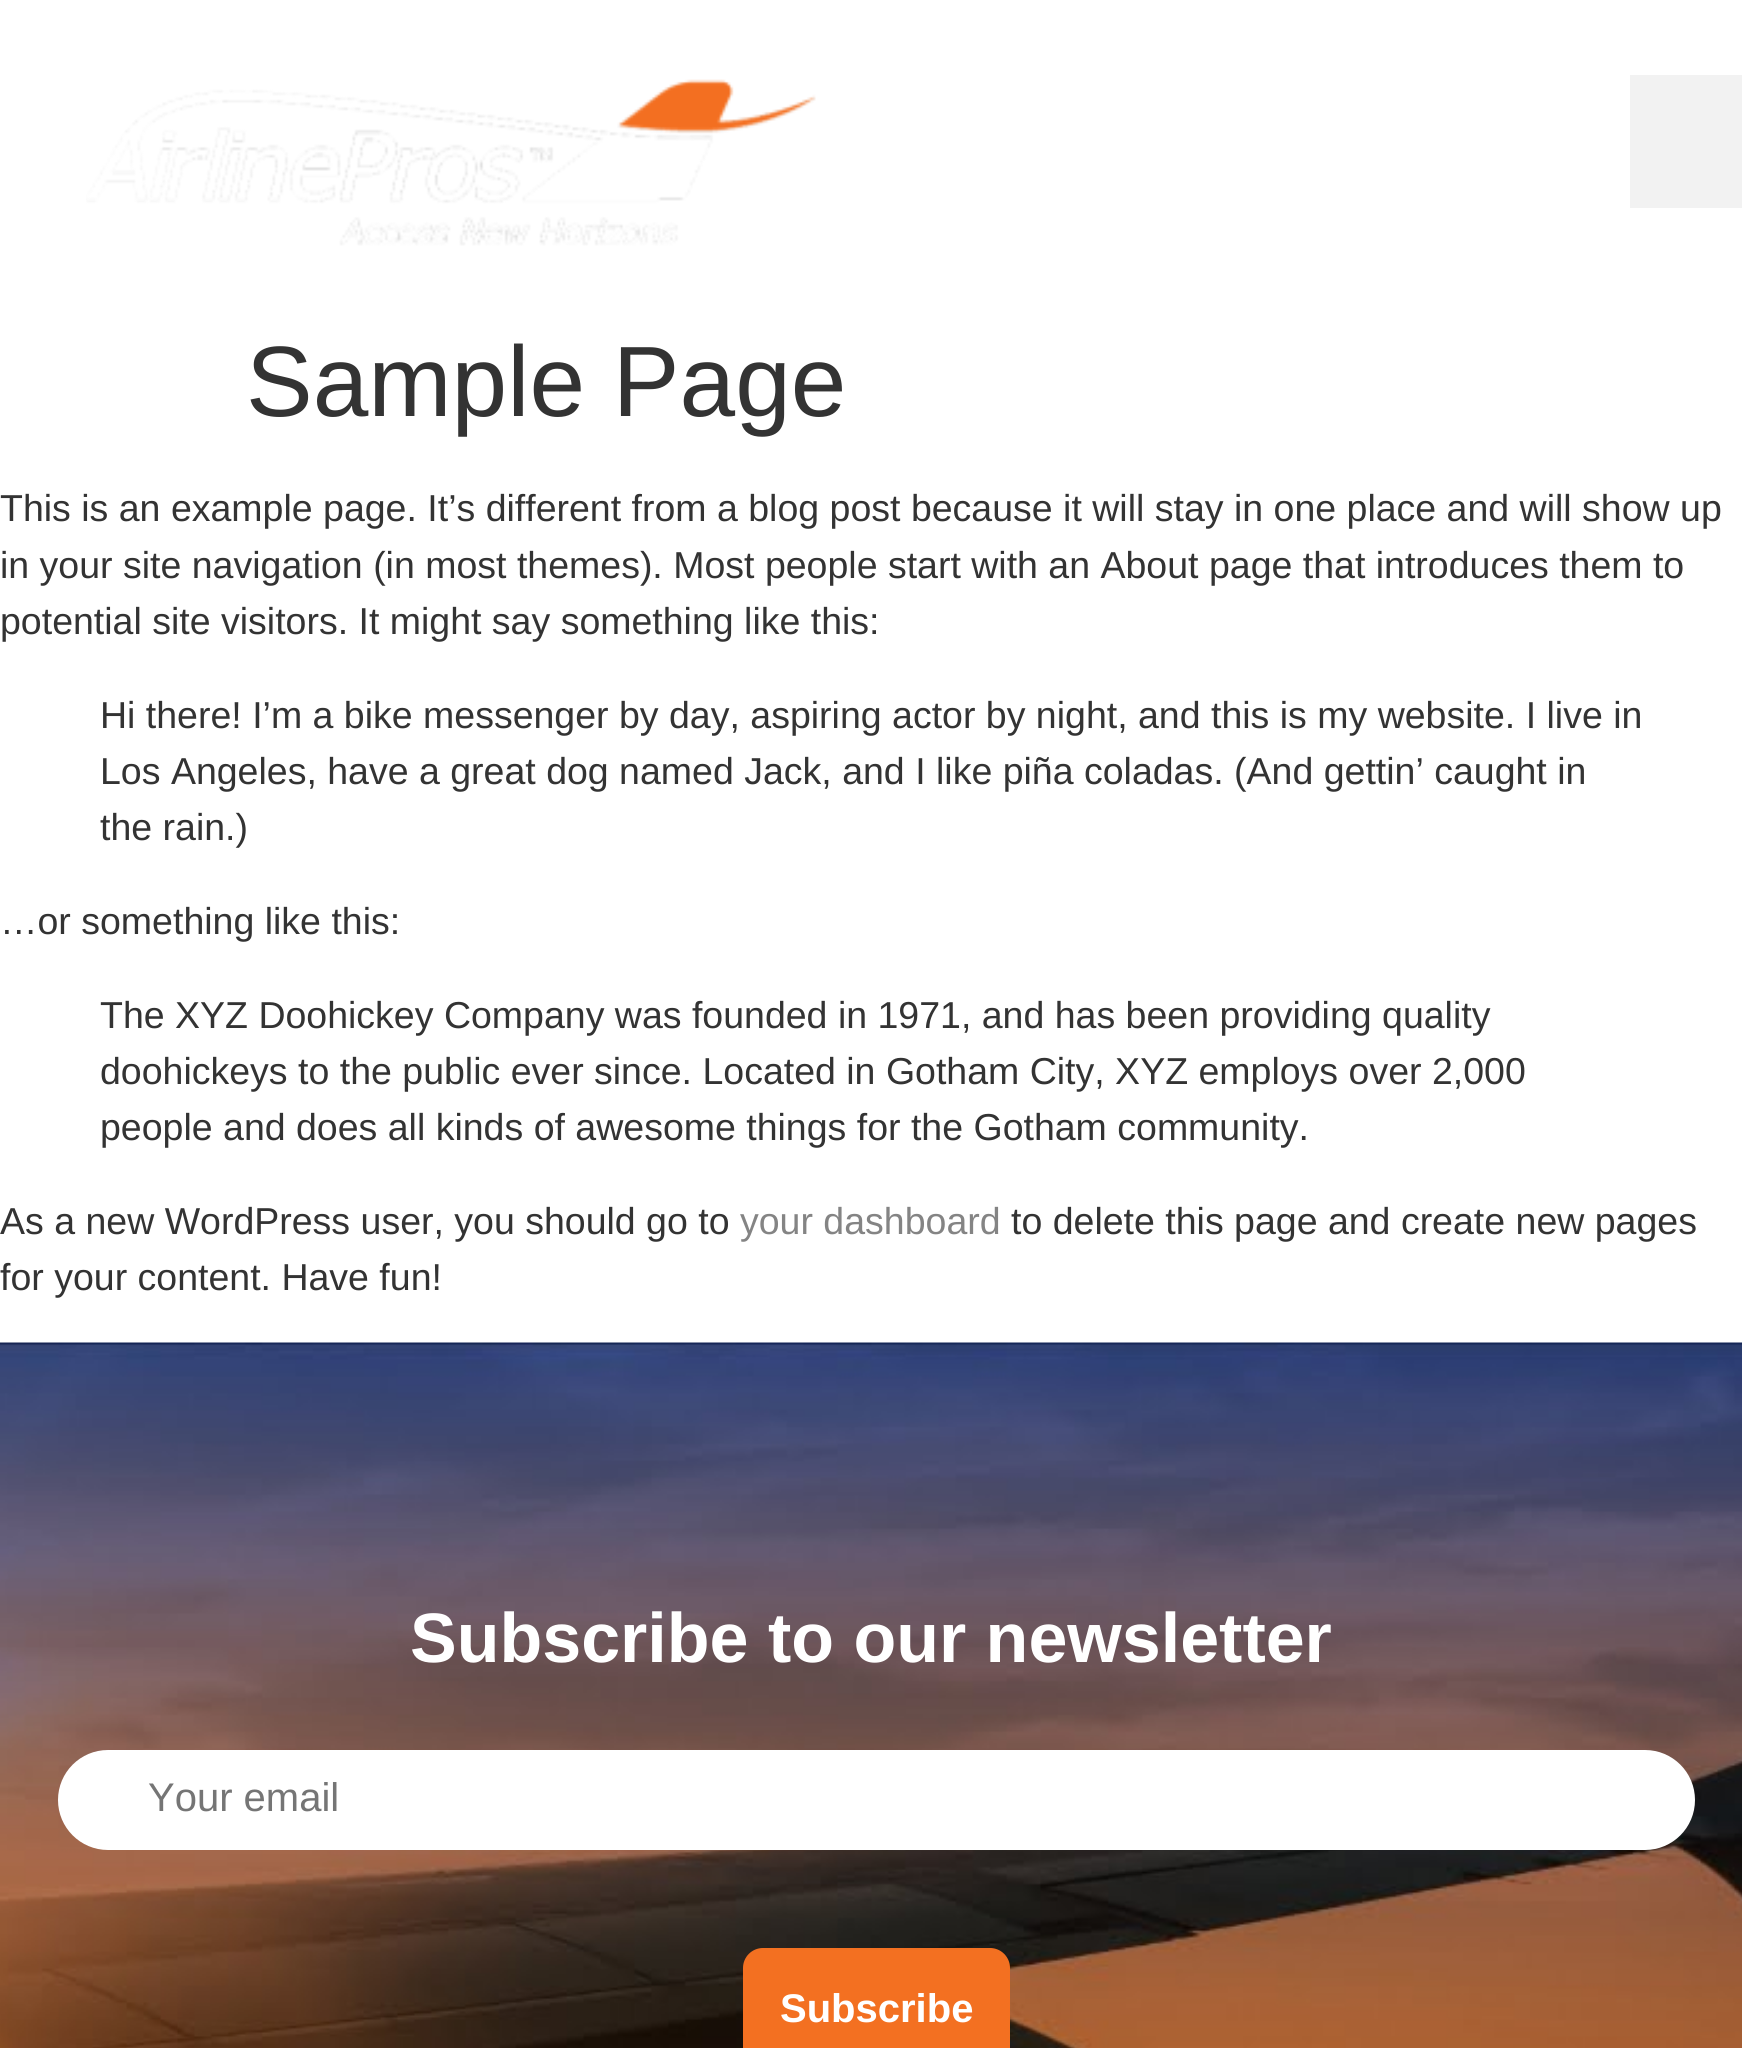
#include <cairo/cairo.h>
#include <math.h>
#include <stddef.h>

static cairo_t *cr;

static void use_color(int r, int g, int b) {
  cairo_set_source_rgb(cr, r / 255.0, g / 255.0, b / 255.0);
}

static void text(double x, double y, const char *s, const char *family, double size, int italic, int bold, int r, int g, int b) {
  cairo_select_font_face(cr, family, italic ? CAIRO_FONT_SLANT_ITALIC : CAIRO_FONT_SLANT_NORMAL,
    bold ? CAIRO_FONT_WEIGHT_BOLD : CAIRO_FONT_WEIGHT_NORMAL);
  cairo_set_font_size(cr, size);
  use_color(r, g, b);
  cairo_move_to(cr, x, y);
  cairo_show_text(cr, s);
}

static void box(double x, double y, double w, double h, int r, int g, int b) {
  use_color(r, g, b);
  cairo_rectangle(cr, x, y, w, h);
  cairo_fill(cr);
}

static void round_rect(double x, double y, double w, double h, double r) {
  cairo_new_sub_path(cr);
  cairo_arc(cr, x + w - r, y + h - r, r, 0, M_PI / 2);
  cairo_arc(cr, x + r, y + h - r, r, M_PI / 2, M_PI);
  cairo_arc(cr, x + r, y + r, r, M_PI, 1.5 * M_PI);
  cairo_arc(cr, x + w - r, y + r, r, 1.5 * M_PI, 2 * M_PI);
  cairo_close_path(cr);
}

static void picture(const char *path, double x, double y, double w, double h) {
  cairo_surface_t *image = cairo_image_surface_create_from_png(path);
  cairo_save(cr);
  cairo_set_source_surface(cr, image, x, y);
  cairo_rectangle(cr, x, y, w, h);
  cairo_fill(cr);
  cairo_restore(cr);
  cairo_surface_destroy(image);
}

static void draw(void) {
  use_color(255, 255, 255);
  cairo_paint(cr);
  picture("img_01.png", 86, 79, 730, 167);
  box(1630, 75, 112, 133, 242, 242, 242);
  picture("img_02.png", 0, 1342, 1742, 706);
  use_color(255, 255, 255);
  round_rect(58, 1750, 1637, 100, 50);
  cairo_fill(cr);
  use_color(243, 112, 33);
  round_rect(743, 1948, 267, 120, 20);
  cairo_fill(cr);
  text(246, 416, "Sample Page", "Liberation Sans", 100, 0, 0, 51, 51, 51);
  text(0, 521, "This is an example page. It’s different from a blog post because it will stay in one place and will show up", "Liberation Sans", 37.5, 0, 0, 51, 51, 51);
  text(0, 578, "in your site navigation (in most themes). Most people start with an About page that introduces them to", "Liberation Sans", 37.5, 0, 0, 51, 51, 51);
  text(0, 634, "potential site visitors. It might say something like this:", "Liberation Sans", 37.5, 0, 0, 51, 51, 51);
  text(100, 728, "Hi there! I’m a bike messenger by day, aspiring actor by night, and this is my website. I live in", "Liberation Sans", 37.5, 0, 0, 51, 51, 51);
  text(100, 784, "Los Angeles, have a great dog named Jack, and I like piña coladas. (And gettin’ caught in", "Liberation Sans", 37.5, 0, 0, 51, 51, 51);
  text(100, 840, "the rain.)", "Liberation Sans", 37.5, 0, 0, 51, 51, 51);
  text(0, 934, "…or something like this:", "Liberation Sans", 37.5, 0, 0, 51, 51, 51);
  text(100, 1028, "The XYZ Doohickey Company was founded in 1971, and has been providing quality", "Liberation Sans", 37.5, 0, 0, 51, 51, 51);
  text(100, 1084, "doohickeys to the public ever since. Located in Gotham City, XYZ employs over 2,000", "Liberation Sans", 37.5, 0, 0, 51, 51, 51);
  text(100, 1140, "people and does all kinds of awesome things for the Gotham community.", "Liberation Sans", 37.5, 0, 0, 51, 51, 51);
  text(0, 1234, "As a new WordPress user, you should go to", "Liberation Sans", 37.5, 0, 0, 51, 51, 51);
  text(740, 1234, "your dashboard", "Liberation Sans", 37.5, 0, 0, 132, 132, 132);
  text(1011, 1234, "to delete this page and create new pages", "Liberation Sans", 37.5, 0, 0, 51, 51, 51);
  text(0, 1290, "for your content. Have fun!", "Liberation Sans", 37.5, 0, 0, 51, 51, 51);
  text(410, 1662, "Subscribe to our newsletter", "Liberation Sans", 70, 0, 1, 255, 255, 255);
  text(148, 1811, "Your email", "Liberation Sans", 40, 0, 0, 117, 117, 117);
  text(780, 2022, "Subscribe", "Liberation Sans", 40, 0, 1, 255, 255, 255);
}

int main(void) {
  cairo_surface_t *surface = cairo_image_surface_create(CAIRO_FORMAT_RGB24, 1742, 2048);
  cr = cairo_create(surface);
  cairo_font_options_t *options = cairo_font_options_create();
  cairo_font_options_set_hint_metrics(options, CAIRO_HINT_METRICS_OFF);
  cairo_font_options_set_hint_style(options, CAIRO_HINT_STYLE_NONE);
  cairo_set_font_options(cr, options);
  cairo_set_miter_limit(cr, 4);
  draw();
  cairo_surface_write_to_png(surface, "out.png");
  cairo_font_options_destroy(options);
  cairo_destroy(cr);
  cairo_surface_destroy(surface);
  return 0;
}
